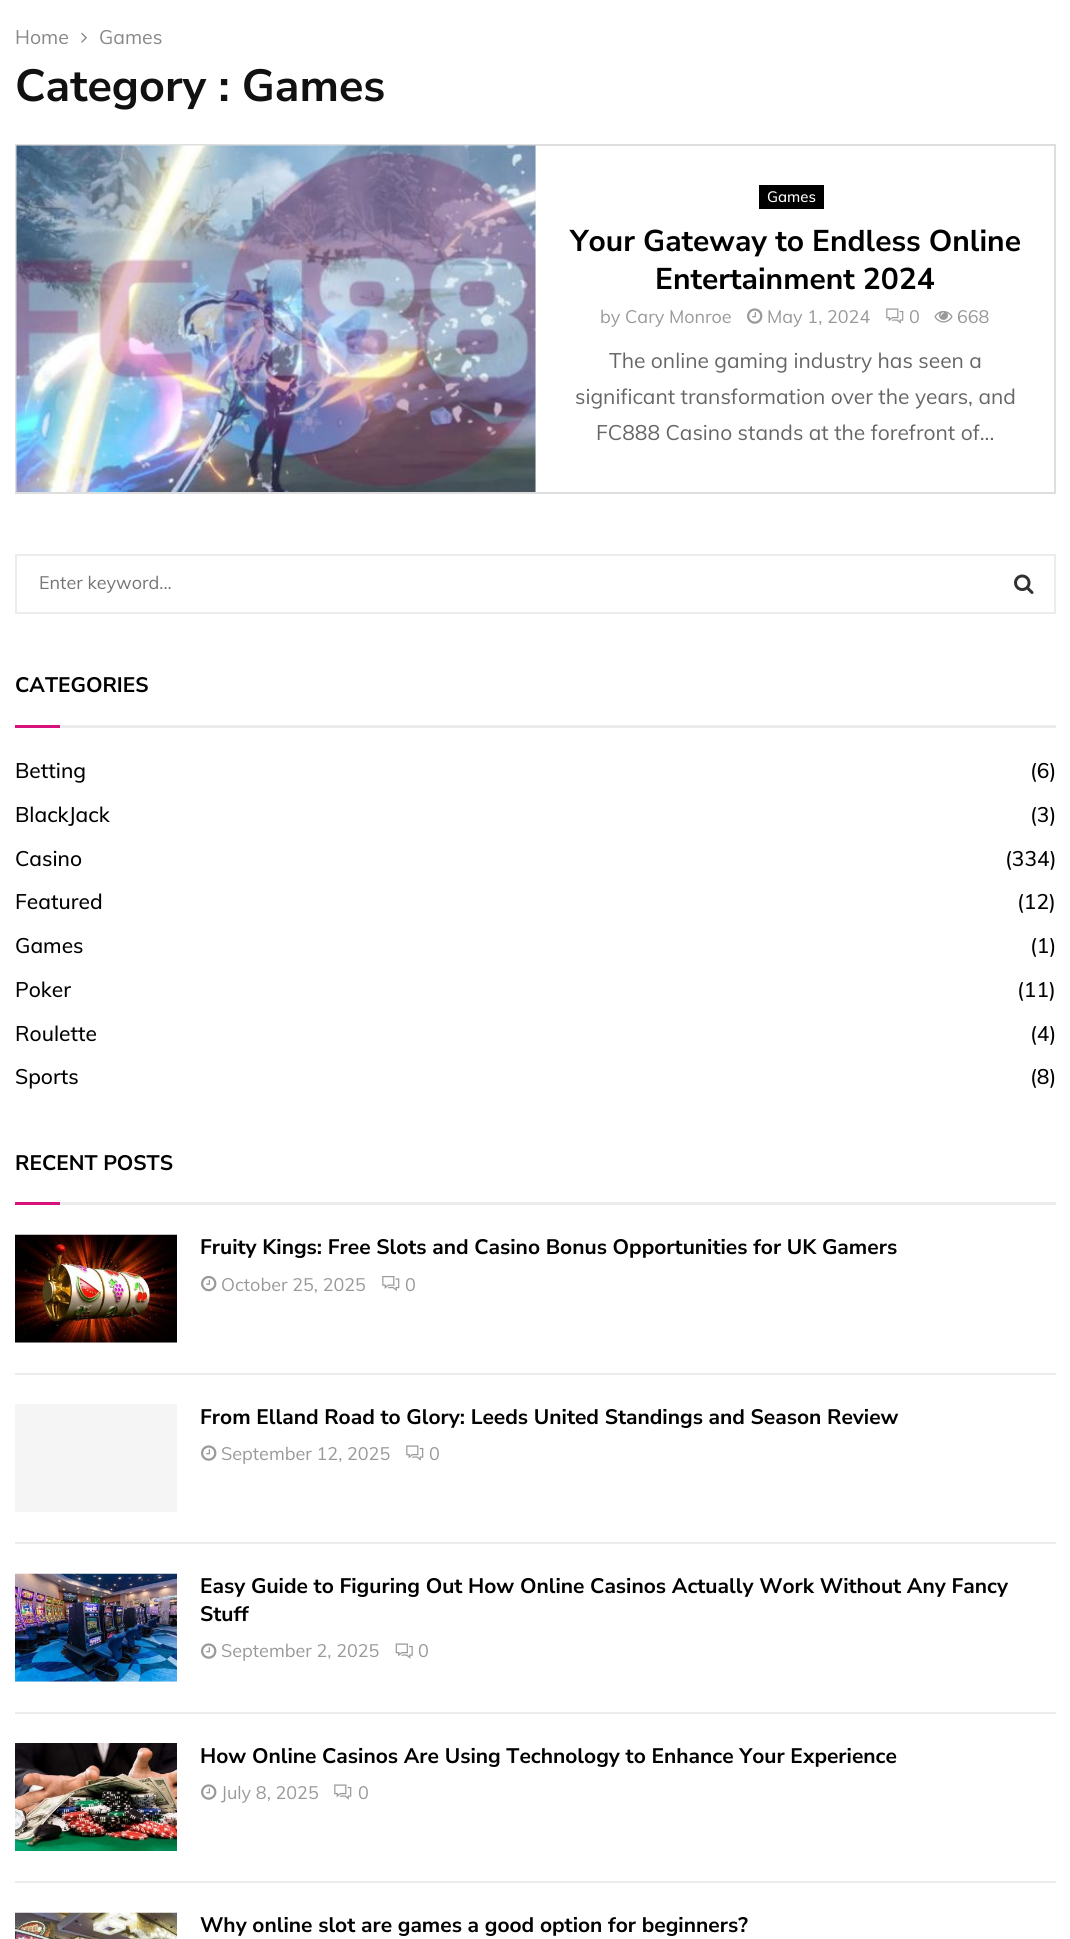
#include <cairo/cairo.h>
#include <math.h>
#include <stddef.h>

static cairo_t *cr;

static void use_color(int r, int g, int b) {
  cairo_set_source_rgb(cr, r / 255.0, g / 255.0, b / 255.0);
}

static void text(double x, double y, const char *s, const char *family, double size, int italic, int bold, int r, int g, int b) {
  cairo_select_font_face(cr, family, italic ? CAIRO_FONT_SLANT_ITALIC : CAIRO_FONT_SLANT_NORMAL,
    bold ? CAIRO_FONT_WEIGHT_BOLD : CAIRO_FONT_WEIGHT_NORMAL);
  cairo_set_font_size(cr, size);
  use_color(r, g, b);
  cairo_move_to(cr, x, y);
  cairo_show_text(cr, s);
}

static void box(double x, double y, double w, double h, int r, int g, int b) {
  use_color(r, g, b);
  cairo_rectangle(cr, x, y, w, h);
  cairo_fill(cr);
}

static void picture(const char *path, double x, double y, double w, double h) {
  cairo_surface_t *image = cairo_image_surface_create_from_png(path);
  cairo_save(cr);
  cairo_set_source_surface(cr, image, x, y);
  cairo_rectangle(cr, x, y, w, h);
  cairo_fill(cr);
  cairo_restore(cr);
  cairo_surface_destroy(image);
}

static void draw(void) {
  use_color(255, 255, 255);
  cairo_paint(cr);
  picture("img_01.png", 81, 32, 6, 11);
  cairo_rectangle(cr, 16, 145, 1039, 348);
  use_color(222, 222, 222);
  cairo_stroke(cr);
  box(535, 146, 1, 346, 245, 245, 245);
  picture("img_02.png", 16, 145, 520, 347);
  box(759, 185, 65, 24, 0, 0, 0);
  picture("img_03.png", 747, 308, 16, 16);
  picture("img_04.png", 886, 308, 18, 16);
  picture("img_05.png", 934, 310, 19, 13);
  cairo_rectangle(cr, 16, 555, 1039, 58);
  use_color(236, 236, 236);
  cairo_stroke(cr);
  picture("img_06.png", 1014, 574, 20, 20);
  box(60, 725, 996, 3, 236, 236, 236);
  box(15, 725, 45, 3, 216, 18, 125);
  box(60, 1202, 996, 3, 236, 236, 236);
  box(15, 1202, 45, 3, 216, 18, 125);
  box(15, 1373, 1041, 2, 236, 236, 236);
  box(15, 1342, 162, 1, 245, 245, 245);
  picture("img_07.png", 15, 1234, 162, 109);
  picture("img_08.png", 201, 1275, 16, 17);
  picture("img_09.png", 382, 1276, 18, 16);
  box(15, 1542, 1041, 2, 236, 236, 236);
  box(15, 1404, 162, 108, 245, 245, 245);
  picture("img_03.png", 201, 1445, 16, 16);
  picture("img_04.png", 406, 1445, 18, 16);
  box(15, 1712, 1041, 2, 236, 236, 236);
  box(15, 1681, 162, 1, 245, 245, 245);
  picture("img_10.png", 15, 1573, 162, 109);
  picture("img_03.png", 201, 1643, 16, 16);
  picture("img_11.png", 395, 1643, 18, 16);
  box(15, 1881, 1041, 2, 236, 236, 236);
  picture("img_12.png", 15, 1743, 162, 108);
  picture("img_03.png", 201, 1784, 16, 16);
  picture("img_04.png", 334, 1784, 18, 16);
  picture("img_13.png", 15, 1912, 162, 27);
  text(15, 44, "Home", "Muli", 19.5, 0, 0, 136, 136, 136);
  text(99, 44, "Games", "Muli", 19.5, 0, 0, 136, 136, 136);
  text(15, 101, "Category : Games", "Nunito Sans", 45, 0, 1, 17, 17, 17);
  text(767, 202, "Games", "Muli Medium", 15, 0, 0, 255, 255, 255);
  text(570, 251, "Your Gateway to Endless Online", "Nunito Sans", 30, 0, 1, 0, 0, 0);
  text(655, 289, "Entertainment 2024", "Nunito Sans", 30, 0, 1, 0, 0, 0);
  text(600, 323, "by Cary Monroe", "Muli", 18, 0, 0, 153, 153, 153);
  text(767, 323, "May 1, 2024", "Muli", 18, 0, 0, 153, 153, 153);
  text(909, 323, "0", "Muli", 18, 0, 0, 153, 153, 153);
  text(957, 323, "668", "Muli", 18, 0, 0, 153, 153, 153);
  text(609, 368, "The online gaming industry has seen a", "Muli", 21, 0, 0, 102, 102, 102);
  text(575, 404, "significant transformation over the years, and", "Muli", 21, 0, 0, 102, 102, 102);
  text(596, 440, "FC888 Casino stands at the forefront of...", "Muli", 21, 0, 0, 102, 102, 102);
  text(39, 589, "Enter keyword...", "Muli", 18, 0, 0, 117, 117, 117);
  text(15, 692, "CATEGORIES", "Nunito Sans", 21, 0, 1, 0, 0, 0);
  text(15, 778, "Betting", "Muli Medium", 21, 0, 0, 0, 0, 0);
  text(1030, 778, "(6)", "Muli Medium", 21, 0, 0, 0, 0, 0);
  text(15, 822, "BlackJack", "Muli Medium", 21, 0, 0, 0, 0, 0);
  text(1030, 822, "(3)", "Muli Medium", 21, 0, 0, 0, 0, 0);
  text(15, 866, "Casino", "Muli Medium", 21, 0, 0, 0, 0, 0);
  text(1005, 866, "(334)", "Muli Medium", 21, 0, 0, 0, 0, 0);
  text(15, 909, "Featured", "Muli Medium", 21, 0, 0, 0, 0, 0);
  text(1017, 909, "(12)", "Muli Medium", 21, 0, 0, 0, 0, 0);
  text(15, 953, "Games", "Muli Medium", 21, 0, 0, 0, 0, 0);
  text(1030, 953, "(1)", "Muli Medium", 21, 0, 0, 0, 0, 0);
  text(15, 997, "Poker", "Muli Medium", 21, 0, 0, 0, 0, 0);
  text(1017, 997, "(11)", "Muli Medium", 21, 0, 0, 0, 0, 0);
  text(15, 1041, "Roulette", "Muli Medium", 21, 0, 0, 0, 0, 0);
  text(1030, 1041, "(4)", "Muli Medium", 21, 0, 0, 0, 0, 0);
  text(15, 1084, "Sports", "Muli Medium", 21, 0, 0, 0, 0, 0);
  text(1030, 1084, "(8)", "Muli Medium", 21, 0, 0, 0, 0, 0);
  text(15, 1170, "RECENT POSTS", "Nunito Sans", 21, 0, 1, 0, 0, 0);
  text(200, 1254, "Fruity Kings: Free Slots and Casino Bonus Opportunities for UK Gamers", "Nunito Sans", 21, 0, 1, 0, 0, 0);
  text(221, 1291, "October 25, 2025", "Muli", 18, 0, 0, 153, 153, 153);
  text(405, 1291, "0", "Muli", 18, 0, 0, 153, 153, 153);
  text(200, 1424, "From Elland Road to Glory: Leeds United Standings and Season Review", "Nunito Sans", 21, 0, 1, 0, 0, 0);
  text(221, 1460, "September 12, 2025", "Muli", 18, 0, 0, 153, 153, 153);
  text(429, 1460, "0", "Muli", 18, 0, 0, 153, 153, 153);
  text(200, 1593, "Easy Guide to Figuring Out How Online Casinos Actually Work Without Any Fancy", "Nunito Sans", 21, 0, 1, 0, 0, 0);
  text(200, 1621, "Stuff", "Nunito Sans", 21, 0, 1, 0, 0, 0);
  text(221, 1657, "September 2, 2025", "Muli", 18, 0, 0, 153, 153, 153);
  text(418, 1657, "0", "Muli", 18, 0, 0, 153, 153, 153);
  text(200, 1763, "How Online Casinos Are Using Technology to Enhance Your Experience", "Nunito Sans", 21, 0, 1, 0, 0, 0);
  text(221, 1799, "July 8, 2025", "Muli", 18, 0, 0, 153, 153, 153);
  text(358, 1799, "0", "Muli", 18, 0, 0, 153, 153, 153);
  text(200, 1932, "Why online slot are games a good option for beginners?", "Nunito Sans", 21, 0, 1, 0, 0, 0);
}

int main(void) {
  cairo_surface_t *surface = cairo_image_surface_create(CAIRO_FORMAT_RGB24, 1070, 1939);
  cr = cairo_create(surface);
  cairo_font_options_t *options = cairo_font_options_create();
  cairo_font_options_set_hint_metrics(options, CAIRO_HINT_METRICS_OFF);
  cairo_font_options_set_hint_style(options, CAIRO_HINT_STYLE_NONE);
  cairo_set_font_options(cr, options);
  cairo_set_miter_limit(cr, 4);
  draw();
  cairo_surface_write_to_png(surface, "out.png");
  cairo_font_options_destroy(options);
  cairo_destroy(cr);
  cairo_surface_destroy(surface);
  return 0;
}
